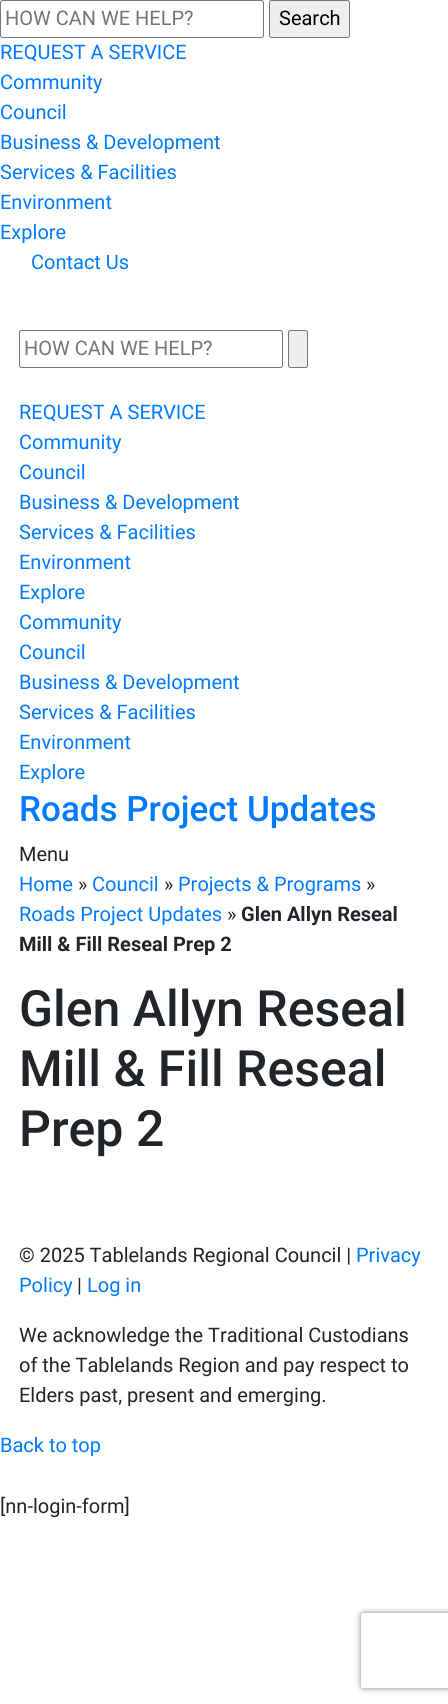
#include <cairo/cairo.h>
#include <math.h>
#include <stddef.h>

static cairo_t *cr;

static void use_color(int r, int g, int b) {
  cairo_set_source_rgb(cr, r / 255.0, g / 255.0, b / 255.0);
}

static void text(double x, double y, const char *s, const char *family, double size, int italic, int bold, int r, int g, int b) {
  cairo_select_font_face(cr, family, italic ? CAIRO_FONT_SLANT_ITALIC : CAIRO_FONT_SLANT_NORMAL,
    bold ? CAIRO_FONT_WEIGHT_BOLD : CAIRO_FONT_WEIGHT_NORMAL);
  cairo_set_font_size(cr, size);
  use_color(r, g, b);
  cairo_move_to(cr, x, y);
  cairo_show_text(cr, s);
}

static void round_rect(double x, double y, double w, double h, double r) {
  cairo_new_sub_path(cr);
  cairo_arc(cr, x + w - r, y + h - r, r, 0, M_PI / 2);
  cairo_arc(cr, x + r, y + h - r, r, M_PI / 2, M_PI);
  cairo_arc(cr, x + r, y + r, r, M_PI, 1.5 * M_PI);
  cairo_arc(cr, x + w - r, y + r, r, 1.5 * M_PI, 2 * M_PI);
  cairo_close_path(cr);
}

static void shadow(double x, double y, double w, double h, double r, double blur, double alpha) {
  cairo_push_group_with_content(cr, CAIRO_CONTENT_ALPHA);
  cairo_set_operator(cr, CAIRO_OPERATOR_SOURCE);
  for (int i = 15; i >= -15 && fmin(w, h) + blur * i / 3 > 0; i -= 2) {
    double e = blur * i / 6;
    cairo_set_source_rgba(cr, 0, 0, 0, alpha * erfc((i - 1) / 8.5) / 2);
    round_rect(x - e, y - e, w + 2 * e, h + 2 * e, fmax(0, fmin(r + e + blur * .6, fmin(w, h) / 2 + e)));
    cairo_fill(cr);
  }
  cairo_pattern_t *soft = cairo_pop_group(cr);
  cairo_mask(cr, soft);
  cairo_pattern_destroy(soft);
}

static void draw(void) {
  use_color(255, 255, 255);
  cairo_paint(cr);
  round_rect(0.5, 0.5, 263, 37, 2);
  use_color(118, 118, 118);
  cairo_set_line_width(cr, 1);
  cairo_stroke(cr);
  use_color(239, 239, 239);
  round_rect(269.5, 0.5, 80, 37, 2);
  cairo_fill_preserve(cr);
  use_color(118, 118, 118);
  cairo_stroke(cr);
  round_rect(19.5, 330.5, 263, 37, 2);
  cairo_stroke(cr);
  use_color(239, 239, 239);
  round_rect(288.5, 330.5, 19, 37, 2);
  cairo_fill_preserve(cr);
  use_color(118, 118, 118);
  cairo_stroke(cr);
  cairo_save(cr);
  cairo_set_fill_rule(cr, CAIRO_FILL_RULE_EVEN_ODD);
  cairo_new_path(cr);
  cairo_move_to(cr, 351, 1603);
  cairo_line_to(cr, 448, 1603);
  cairo_line_to(cr, 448, 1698);
  cairo_line_to(cr, 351, 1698);
  cairo_close_path(cr);
  cairo_move_to(cr, 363.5, 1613);
  cairo_line_to(cr, 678.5, 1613);
  cairo_curve_to(cr, 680, 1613, 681, 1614, 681, 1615.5);
  cairo_line_to(cr, 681, 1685.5);
  cairo_curve_to(cr, 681, 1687, 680, 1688, 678.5, 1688);
  cairo_line_to(cr, 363.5, 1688);
  cairo_curve_to(cr, 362, 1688, 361, 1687, 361, 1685.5);
  cairo_line_to(cr, 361, 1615.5);
  cairo_curve_to(cr, 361, 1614, 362, 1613, 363.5, 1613);
  cairo_close_path(cr);
  cairo_clip(cr);
  use_color(128, 128, 128);
  shadow(361, 1613, 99, 75, 2.5, 3, 1);
  cairo_restore(cr);
  text(5, 25, "HOW CAN WE HELP?", "Roboto", 20, 0, 0, 117, 117, 117);
  text(279, 25, "Search", "Roboto", 20, 0, 0, 0, 0, 0);
  text(0, 59, "REQUEST A SERVICE", "Roboto", 20, 0, 0, 0, 123, 255);
  text(0, 89, "Community", "Roboto", 20, 0, 0, 0, 123, 255);
  text(0, 119, "Council", "Roboto", 20, 0, 0, 0, 123, 255);
  text(0, 149, "Business & Development", "Roboto", 20, 0, 0, 0, 123, 255);
  text(0, 179, "Services & Facilities", "Roboto", 20, 0, 0, 0, 123, 255);
  text(0, 209, "Environment", "Roboto", 20, 0, 0, 0, 123, 255);
  text(0, 239, "Explore", "Roboto", 20, 0, 0, 0, 123, 255);
  text(31, 269, "Contact Us", "Roboto", 20, 0, 0, 0, 123, 255);
  text(24, 355, "HOW CAN WE HELP?", "Roboto", 20, 0, 0, 117, 117, 117);
  text(19, 419, "REQUEST A SERVICE", "Roboto", 20, 0, 0, 0, 123, 255);
  text(19, 449, "Community", "Roboto", 20, 0, 0, 0, 123, 255);
  text(19, 479, "Council", "Roboto", 20, 0, 0, 0, 123, 255);
  text(19, 509, "Business & Development", "Roboto", 20, 0, 0, 0, 123, 255);
  text(19, 539, "Services & Facilities", "Roboto", 20, 0, 0, 0, 123, 255);
  text(19, 569, "Environment", "Roboto", 20, 0, 0, 0, 123, 255);
  text(19, 599, "Explore", "Roboto", 20, 0, 0, 0, 123, 255);
  text(19, 629, "Community", "Roboto", 20, 0, 0, 0, 123, 255);
  text(19, 659, "Council", "Roboto", 20, 0, 0, 0, 123, 255);
  text(19, 689, "Business & Development", "Roboto", 20, 0, 0, 0, 123, 255);
  text(19, 719, "Services & Facilities", "Roboto", 20, 0, 0, 0, 123, 255);
  text(19, 749, "Environment", "Roboto", 20, 0, 0, 0, 123, 255);
  text(19, 779, "Explore", "Roboto", 20, 0, 0, 0, 123, 255);
  text(19, 821, "Roads Project Updates", "Roboto Medium", 35, 0, 0, 0, 123, 255);
  text(19, 861, "Menu", "Roboto", 20, 0, 0, 33, 37, 41);
  text(19, 891, "Home", "Roboto", 20, 0, 0, 0, 123, 255);
  text(78, 891, "»", "Roboto", 20, 0, 0, 33, 37, 41);
  text(92, 891, "Council", "Roboto", 20, 0, 0, 0, 123, 255);
  text(164, 891, "»", "Roboto", 20, 0, 0, 33, 37, 41);
  text(178, 891, "Projects & Programs", "Roboto", 20, 0, 0, 0, 123, 255);
  text(366, 891, "»", "Roboto", 20, 0, 0, 33, 37, 41);
  text(19, 921, "Roads Project Updates", "Roboto", 20, 0, 0, 0, 123, 255);
  text(227, 921, "»", "Roboto", 20, 0, 0, 33, 37, 41);
  text(241, 921, "Glen Allyn Reseal", "Roboto", 20, 0, 1, 33, 37, 41);
  text(19, 951, "Mill & Fill Reseal Prep 2", "Roboto", 20, 0, 1, 33, 37, 41);
  text(19, 1026, "Glen Allyn Reseal", "Roboto Medium", 50, 0, 0, 33, 37, 41);
  text(19, 1086, "Mill & Fill Reseal", "Roboto Medium", 50, 0, 0, 33, 37, 41);
  text(19, 1146, "Prep 2", "Roboto Medium", 50, 0, 0, 33, 37, 41);
  text(19, 1262, "© 2025 Tablelands Regional Council |", "Roboto", 20, 0, 0, 33, 37, 41);
  text(356, 1262, "Privacy", "Roboto", 20, 0, 0, 0, 123, 255);
  text(19, 1292, "Policy", "Roboto", 20, 0, 0, 0, 123, 255);
  text(77, 1292, "|", "Roboto", 20, 0, 0, 33, 37, 41);
  text(87, 1292, "Log in", "Roboto", 20, 0, 0, 0, 123, 255);
  text(19, 1342, "We acknowledge the Traditional Custodians", "Roboto", 20, 0, 0, 33, 37, 41);
  text(19, 1372, "of the Tablelands Region and pay respect to", "Roboto", 20, 0, 0, 33, 37, 41);
  text(19, 1402, "Elders past, present and emerging.", "Roboto", 20, 0, 0, 33, 37, 41);
  text(0, 1452, "Back to top", "Roboto", 20, 0, 0, 0, 123, 255);
  text(0, 1513, "[nn-login-form]", "Roboto", 20, 0, 0, 33, 37, 41);
}

int main(void) {
  cairo_surface_t *surface = cairo_image_surface_create(CAIRO_FORMAT_RGB24, 448, 1704);
  cr = cairo_create(surface);
  cairo_font_options_t *options = cairo_font_options_create();
  cairo_font_options_set_hint_metrics(options, CAIRO_HINT_METRICS_OFF);
  cairo_font_options_set_hint_style(options, CAIRO_HINT_STYLE_NONE);
  cairo_set_font_options(cr, options);
  cairo_set_miter_limit(cr, 4);
  draw();
  cairo_surface_write_to_png(surface, "out.png");
  cairo_font_options_destroy(options);
  cairo_destroy(cr);
  cairo_surface_destroy(surface);
  return 0;
}
